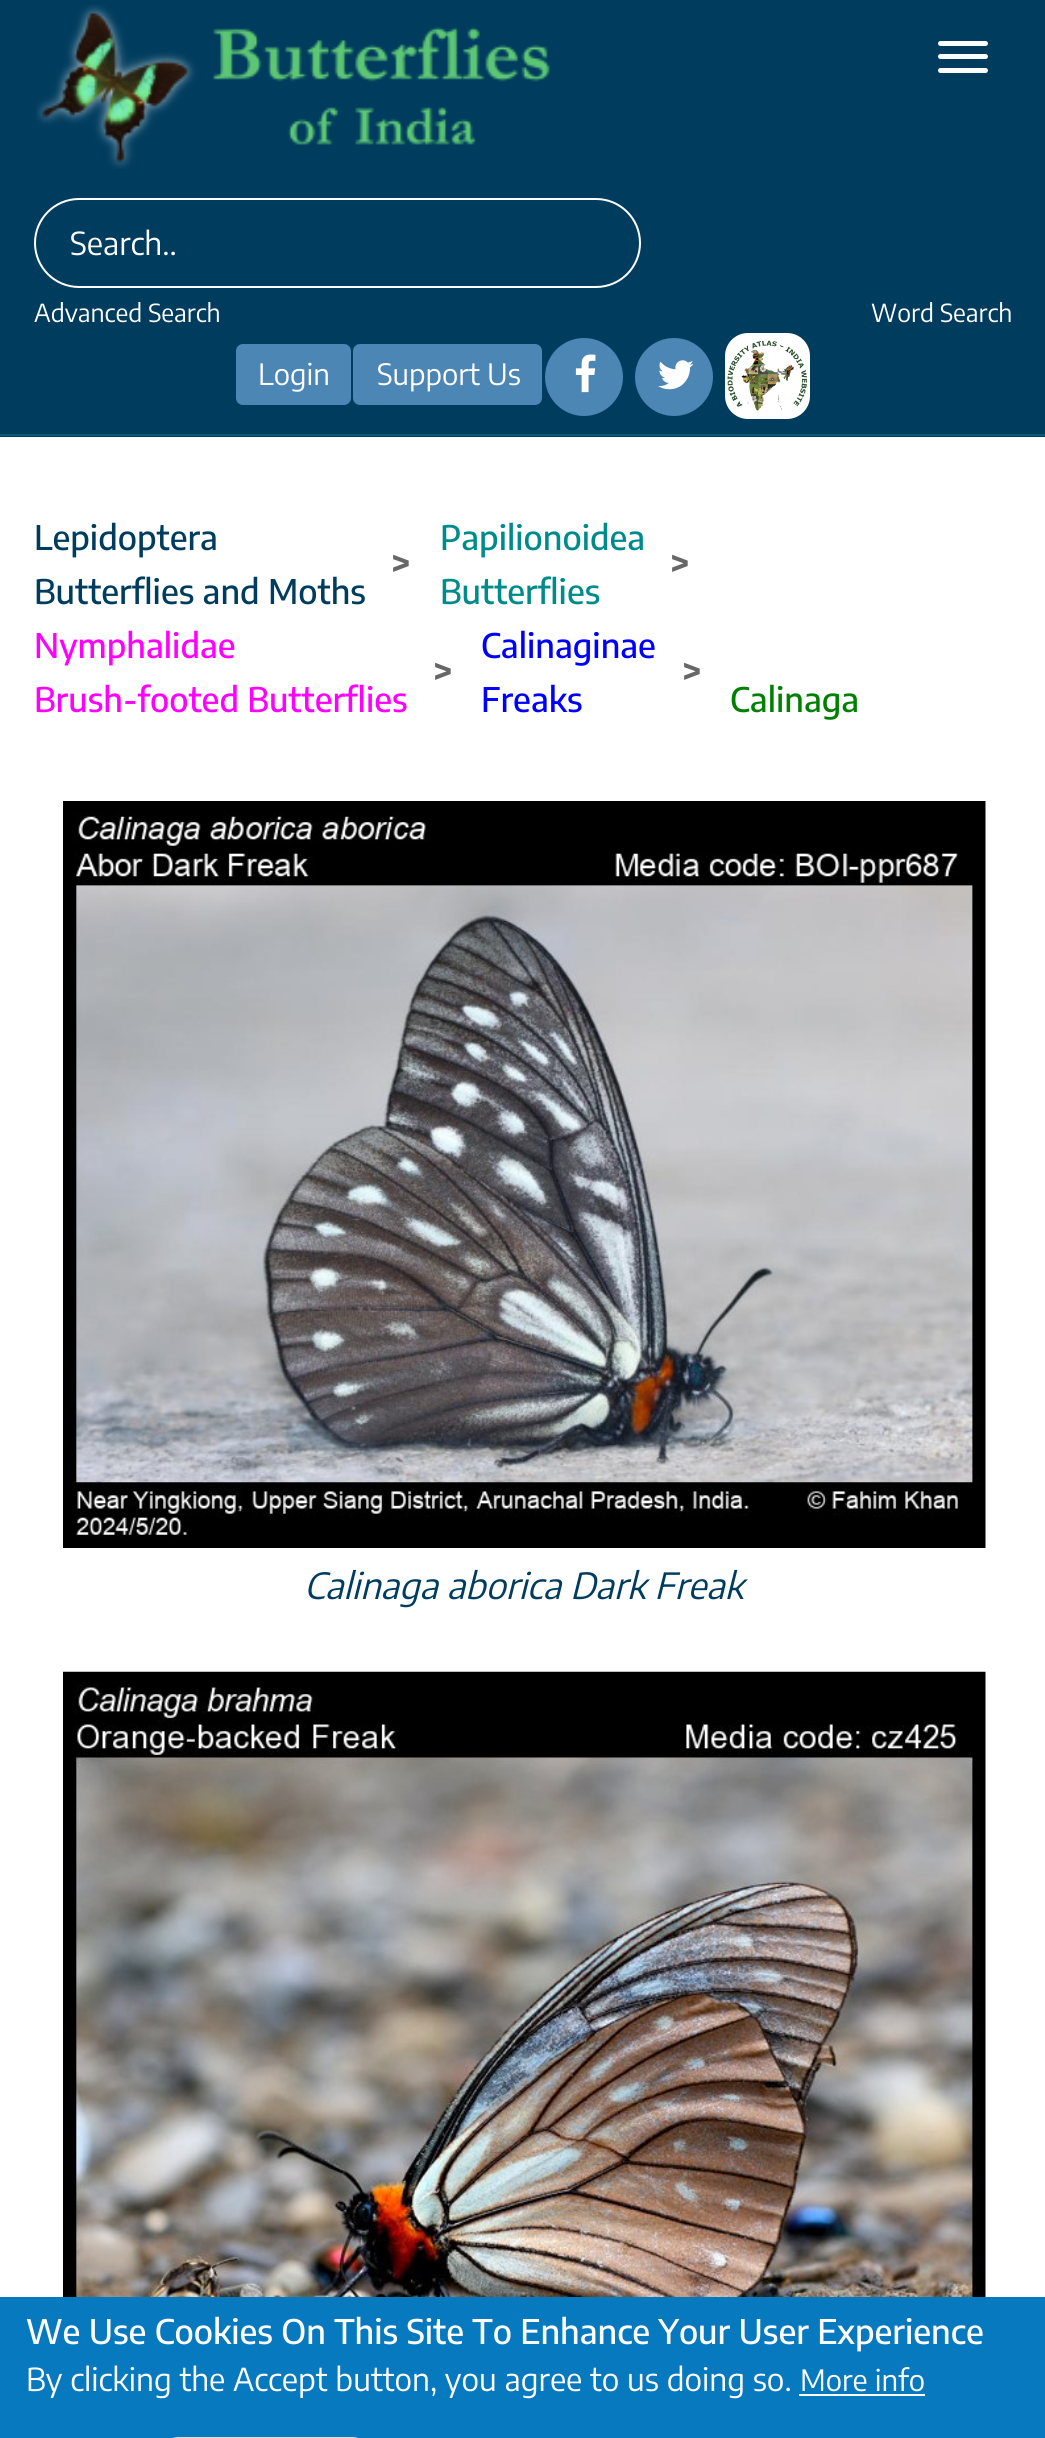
#include <cairo/cairo.h>
#include <math.h>
#include <stddef.h>

static cairo_t *cr;

static void use_color(int r, int g, int b) {
  cairo_set_source_rgb(cr, r / 255.0, g / 255.0, b / 255.0);
}

static void text(double x, double y, const char *s, const char *family, double size, int italic, int bold, int r, int g, int b) {
  cairo_select_font_face(cr, family, italic ? CAIRO_FONT_SLANT_ITALIC : CAIRO_FONT_SLANT_NORMAL,
    bold ? CAIRO_FONT_WEIGHT_BOLD : CAIRO_FONT_WEIGHT_NORMAL);
  cairo_set_font_size(cr, size);
  use_color(r, g, b);
  cairo_move_to(cr, x, y);
  cairo_show_text(cr, s);
}

static void box(double x, double y, double w, double h, int r, int g, int b) {
  use_color(r, g, b);
  cairo_rectangle(cr, x, y, w, h);
  cairo_fill(cr);
}

static void round_rect(double x, double y, double w, double h, double r) {
  cairo_new_sub_path(cr);
  cairo_arc(cr, x + w - r, y + h - r, r, 0, M_PI / 2);
  cairo_arc(cr, x + r, y + h - r, r, M_PI / 2, M_PI);
  cairo_arc(cr, x + r, y + r, r, M_PI, 1.5 * M_PI);
  cairo_arc(cr, x + w - r, y + r, r, 1.5 * M_PI, 2 * M_PI);
  cairo_close_path(cr);
}

static void picture(const char *path, double x, double y, double w, double h) {
  cairo_surface_t *image = cairo_image_surface_create_from_png(path);
  cairo_save(cr);
  cairo_set_source_surface(cr, image, x, y);
  cairo_rectangle(cr, x, y, w, h);
  cairo_fill(cr);
  cairo_restore(cr);
  cairo_surface_destroy(image);
}

static void draw(void) {
  use_color(0, 60, 94);
  cairo_paint(cr);
  picture("img_01.png", 36, 4, 514, 165);
  use_color(255, 255, 255);
  round_rect(938, 41, 50, 5, 2.5);
  cairo_fill(cr);
  round_rect(938, 54, 50, 5, 2.5);
  cairo_fill(cr);
  round_rect(938, 68, 50, 5, 2.5);
  cairo_fill(cr);
  round_rect(35, 199, 605, 88, 44);
  cairo_stroke(cr);
  use_color(75, 134, 180);
  round_rect(236, 344, 115, 61, 7);
  cairo_fill(cr);
  round_rect(353, 344, 189, 61, 7);
  cairo_fill(cr);
  cairo_arc(cr, 584, 377, 39, 0, 2 * M_PI);
  cairo_fill(cr);
  picture("img_02.png", 575, 354, 21, 39);
  cairo_arc(cr, 674, 377, 39, 0, 2 * M_PI);
  cairo_fill(cr);
  picture("img_03.png", 658, 360, 36, 30);
  use_color(255, 255, 255);
  round_rect(725, 333, 85, 86, 23);
  cairo_fill(cr);
  picture("img_04.png", 727, 340, 80, 71);
  box(0, 434, 1045, 2, 12, 91, 119);
  box(0, 437, 1045, 1860, 255, 255, 255);
  picture("img_05.png", 63, 801, 923, 747);
  picture("img_06.png", 63, 1671, 923, 626);
  box(0, 2297, 1045, 141, 7, 121, 191);
  box(799, 2394, 126, 2, 255, 255, 255);
  round_rect(165, 2438, 201, 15, 13);
  use_color(220, 220, 220);
  cairo_stroke(cr);
  text(70, 255, "Search..", "Encode Sans Condensed", 31.5, 0, 0, 255, 254, 255);
  text(34, 322, "Advanced Search", "Encode Sans Condensed", 24.75, 0, 0, 255, 254, 255);
  text(871, 322, "Word Search", "Encode Sans Condensed", 24.75, 0, 0, 255, 254, 255);
  text(258, 385, "Login", "Encode Sans Condensed", 29.25, 0, 0, 255, 254, 255);
  text(377, 385, "Support Us", "Encode Sans Condensed", 29.25, 0, 0, 255, 254, 255);
  text(34, 550, "Lepidoptera", "Encode Sans Condensed Medium", 33.75, 0, 0, 0, 60, 94);
  text(391, 577, ">", "Encode Sans Condensed", 36, 0, 1, 103, 103, 103);
  text(34, 604, "Butterflies and Moths", "Encode Sans Condensed Medium", 33.75, 0, 0, 0, 60, 94);
  text(440, 550, "Papilionoidea", "Encode Sans Condensed Medium", 33.75, 0, 0, 0, 139, 139);
  text(670, 577, ">", "Encode Sans Condensed", 36, 0, 1, 103, 103, 103);
  text(440, 604, "Butterflies", "Encode Sans Condensed Medium", 33.75, 0, 0, 0, 139, 139);
  text(34, 658, "Nymphalidae", "Encode Sans Condensed Medium", 33.75, 0, 0, 255, 0, 255);
  text(433, 685, ">", "Encode Sans Condensed", 36, 0, 1, 103, 103, 103);
  text(34, 712, "Brush-footed Butterflies", "Encode Sans Condensed Medium", 33.75, 0, 0, 255, 0, 255);
  text(481, 658, "Calinaginae", "Encode Sans Condensed Medium", 33.75, 0, 0, 0, 0, 255);
  text(682, 685, ">", "Encode Sans Condensed", 36, 0, 1, 103, 103, 103);
  text(481, 712, "Freaks", "Encode Sans Condensed Medium", 33.75, 0, 0, 0, 0, 255);
  text(730, 712, "Calinaga", "Encode Sans Condensed Medium", 33.75, 0, 0, 0, 128, 0);
  text(304, 1599, "Calinaga aborica Dark Freak", "Encode Sans Condensed", 36, 1, 0, 0, 60, 94);
  text(26, 2344, "We Use Cookies On This Site To Enhance Your User Experience", "Encode Sans Condensed Medium", 33.75, 0, 0, 255, 254, 255);
  text(26, 2391, "By clicking the Accept button, you agree to us doing so.", "Encode Sans Condensed", 31.5, 0, 0, 255, 254, 255);
  text(800, 2391, "More info", "Encode Sans Condensed", 29.25, 0, 0, 255, 254, 255);
}

int main(void) {
  cairo_surface_t *surface = cairo_image_surface_create(CAIRO_FORMAT_RGB24, 1045, 2438);
  cr = cairo_create(surface);
  cairo_font_options_t *options = cairo_font_options_create();
  cairo_font_options_set_hint_metrics(options, CAIRO_HINT_METRICS_OFF);
  cairo_font_options_set_hint_style(options, CAIRO_HINT_STYLE_NONE);
  cairo_set_font_options(cr, options);
  cairo_set_miter_limit(cr, 4);
  draw();
  cairo_surface_write_to_png(surface, "out.png");
  cairo_font_options_destroy(options);
  cairo_destroy(cr);
  cairo_surface_destroy(surface);
  return 0;
}
